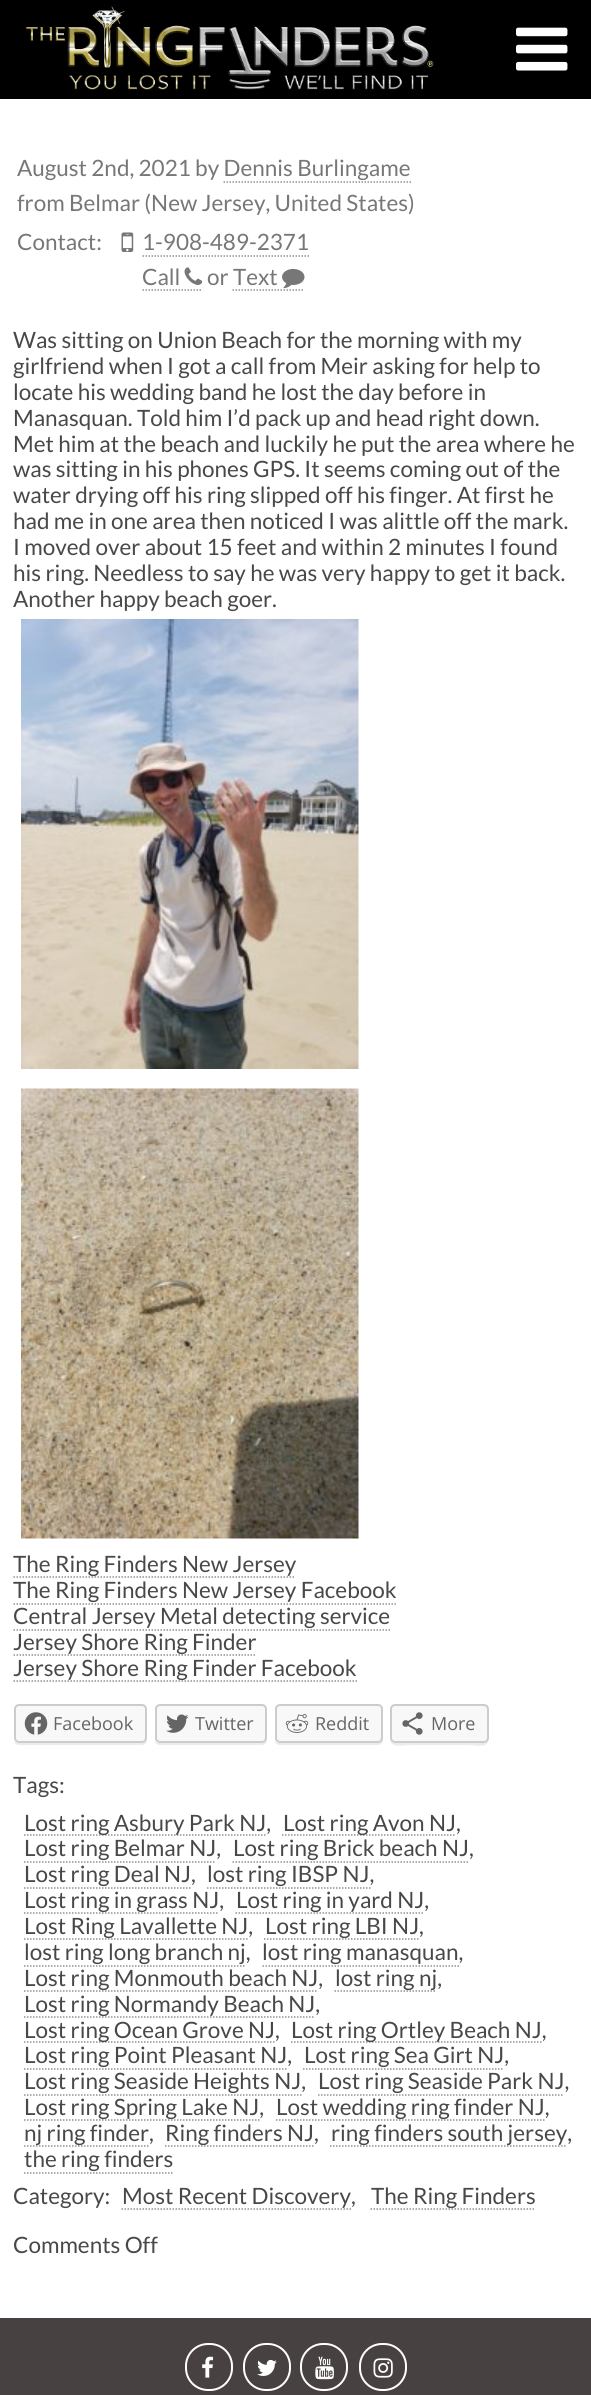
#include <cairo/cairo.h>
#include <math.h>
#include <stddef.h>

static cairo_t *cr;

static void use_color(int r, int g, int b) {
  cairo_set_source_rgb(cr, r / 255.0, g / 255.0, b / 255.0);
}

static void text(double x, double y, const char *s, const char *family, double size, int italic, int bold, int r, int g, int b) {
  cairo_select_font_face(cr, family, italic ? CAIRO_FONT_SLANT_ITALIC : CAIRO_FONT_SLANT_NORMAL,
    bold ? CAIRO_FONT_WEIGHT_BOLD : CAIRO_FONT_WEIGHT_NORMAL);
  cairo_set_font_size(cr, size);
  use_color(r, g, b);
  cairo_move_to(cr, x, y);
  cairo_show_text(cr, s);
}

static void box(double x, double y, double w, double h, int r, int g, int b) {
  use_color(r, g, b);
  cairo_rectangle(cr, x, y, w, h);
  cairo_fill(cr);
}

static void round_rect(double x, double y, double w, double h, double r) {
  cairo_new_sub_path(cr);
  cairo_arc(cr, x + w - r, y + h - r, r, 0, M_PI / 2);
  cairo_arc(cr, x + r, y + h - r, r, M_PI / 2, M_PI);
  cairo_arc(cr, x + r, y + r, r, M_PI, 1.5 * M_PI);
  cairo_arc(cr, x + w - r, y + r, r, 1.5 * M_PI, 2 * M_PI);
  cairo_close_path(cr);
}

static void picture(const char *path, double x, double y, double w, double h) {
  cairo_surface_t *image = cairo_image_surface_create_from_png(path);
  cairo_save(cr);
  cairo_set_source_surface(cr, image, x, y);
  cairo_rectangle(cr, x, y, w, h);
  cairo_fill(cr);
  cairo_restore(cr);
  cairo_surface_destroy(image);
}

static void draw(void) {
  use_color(255, 255, 255);
  cairo_paint(cr);
  box(0, 0, 591, 99, 0, 0, 0);
  picture("img_01.png", 25, 6, 409, 84);
  picture("img_02.png", 516, 27, 52, 44);
  cairo_new_path(cr);
  cairo_move_to(cr, 223.5, 182);
  cairo_line_to(cr, 411, 182);
  use_color(145, 145, 145);
  cairo_set_line_width(cr, 1.5);
  cairo_set_dash(cr, (double[]){1.5, 1.5}, 2, 0);
  cairo_stroke(cr);
  picture("img_03.png", 121, 232, 13, 20);
  cairo_new_path(cr);
  cairo_move_to(cr, 142.5, 256);
  cairo_line_to(cr, 309, 256);
  cairo_stroke(cr);
  cairo_new_path(cr);
  cairo_move_to(cr, 142.5, 290);
  cairo_line_to(cr, 202.5, 290);
  cairo_stroke(cr);
  picture("img_04.png", 184, 267, 19, 18);
  cairo_new_path(cr);
  cairo_move_to(cr, 232.5, 290);
  cairo_line_to(cr, 304.5, 290);
  cairo_stroke(cr);
  picture("img_05.png", 282, 268, 23, 21);
  picture("img_06.png", 21, 619, 338, 450);
  picture("img_07.png", 21, 1088, 338, 451);
  cairo_new_path(cr);
  cairo_move_to(cr, 13.5, 1577);
  cairo_line_to(cr, 295.5, 1577);
  cairo_stroke(cr);
  cairo_new_path(cr);
  cairo_move_to(cr, 13.5, 1604);
  cairo_line_to(cr, 396, 1604);
  cairo_stroke(cr);
  cairo_new_path(cr);
  cairo_move_to(cr, 13.5, 1630);
  cairo_line_to(cr, 390, 1630);
  cairo_stroke(cr);
  cairo_new_path(cr);
  cairo_move_to(cr, 13.5, 1655);
  cairo_line_to(cr, 256.5, 1655);
  cairo_stroke(cr);
  cairo_new_path(cr);
  cairo_move_to(cr, 13.5, 1681);
  cairo_line_to(cr, 357, 1681);
  cairo_stroke(cr);
  use_color(235, 235, 235);
  cairo_new_path(cr);
  cairo_move_to(cr, 14, 1741);
  cairo_curve_to(cr, 14, 1743, 16, 1745, 19, 1745);
  cairo_line_to(cr, 142, 1745);
  cairo_curve_to(cr, 145, 1745, 147, 1743, 147, 1740);
  cairo_line_to(cr, 147, 1738);
  cairo_curve_to(cr, 147, 1741, 145, 1743, 142, 1743);
  cairo_line_to(cr, 18, 1743);
  cairo_curve_to(cr, 16, 1743, 15, 1742, 14, 1741);
  cairo_close_path(cr);
  cairo_fill(cr);
  use_color(248, 248, 248);
  round_rect(15, 1705, 131, 37, 4);
  cairo_fill_preserve(cr);
  use_color(204, 204, 204);
  cairo_set_line_width(cr, 2);
  cairo_set_dash(cr, NULL, 0, 0);
  cairo_stroke(cr);
  picture("img_08.png", 24, 1712, 24, 23);
  use_color(235, 235, 235);
  cairo_new_path(cr);
  cairo_move_to(cr, 155, 1741);
  cairo_curve_to(cr, 155, 1743, 157, 1745, 160, 1745);
  cairo_line_to(cr, 262, 1745);
  cairo_curve_to(cr, 265, 1745, 267, 1743, 267, 1740);
  cairo_line_to(cr, 267, 1738);
  cairo_curve_to(cr, 267, 1741, 265, 1743, 262, 1743);
  cairo_line_to(cr, 159, 1743);
  cairo_curve_to(cr, 157, 1743, 156, 1742, 155, 1741);
  cairo_close_path(cr);
  cairo_fill(cr);
  use_color(248, 248, 248);
  round_rect(156, 1705, 110, 37, 4);
  cairo_fill_preserve(cr);
  use_color(204, 204, 204);
  cairo_stroke(cr);
  picture("img_09.png", 166, 1714, 23, 19);
  use_color(235, 235, 235);
  cairo_new_path(cr);
  cairo_move_to(cr, 275, 1741);
  cairo_curve_to(cr, 275, 1743, 277, 1745, 280, 1745);
  cairo_line_to(cr, 378, 1745);
  cairo_curve_to(cr, 381, 1745, 383, 1743, 383, 1740);
  cairo_line_to(cr, 383, 1711);
  cairo_line_to(cr, 382, 1709);
  cairo_line_to(cr, 382, 1738);
  cairo_curve_to(cr, 382, 1741, 380, 1743, 378, 1743);
  cairo_line_to(cr, 279, 1743);
  cairo_curve_to(cr, 277, 1743, 276, 1742, 275, 1741);
  cairo_close_path(cr);
  cairo_fill(cr);
  use_color(248, 248, 248);
  round_rect(276, 1705, 106, 37, 4);
  cairo_fill_preserve(cr);
  use_color(204, 204, 204);
  cairo_stroke(cr);
  picture("img_10.png", 285, 1714, 24, 19);
  use_color(235, 235, 235);
  cairo_new_path(cr);
  cairo_move_to(cr, 390, 1738);
  cairo_curve_to(cr, 390, 1749, 403, 1745, 410, 1745);
  cairo_line_to(cr, 469, 1745);
  cairo_curve_to(cr, 476, 1745, 489, 1749, 489, 1738);
  cairo_curve_to(cr, 489, 1741, 487, 1743, 484, 1743);
  cairo_line_to(cr, 394, 1743);
  cairo_curve_to(cr, 392, 1743, 390, 1741, 390, 1738);
  cairo_close_path(cr);
  cairo_fill(cr);
  use_color(248, 248, 248);
  round_rect(391, 1705, 97, 37, 4);
  cairo_fill_preserve(cr);
  use_color(204, 204, 204);
  cairo_stroke(cr);
  picture("img_11.png", 402, 1712, 21, 23);
  cairo_new_path(cr);
  cairo_move_to(cr, 24, 1835);
  cairo_line_to(cr, 267, 1835);
  use_color(145, 145, 145);
  cairo_set_line_width(cr, 1.5);
  cairo_set_dash(cr, (double[]){1.5, 1.5}, 2, 0);
  cairo_stroke(cr);
  cairo_new_path(cr);
  cairo_move_to(cr, 282, 1835);
  cairo_line_to(cr, 456, 1835);
  cairo_stroke(cr);
  cairo_new_path(cr);
  cairo_move_to(cr, 24, 1862);
  cairo_line_to(cr, 216, 1862);
  cairo_stroke(cr);
  cairo_new_path(cr);
  cairo_move_to(cr, 232.5, 1862);
  cairo_line_to(cr, 468, 1862);
  cairo_stroke(cr);
  cairo_new_path(cr);
  cairo_move_to(cr, 24, 1888);
  cairo_line_to(cr, 190.5, 1888);
  cairo_stroke(cr);
  cairo_new_path(cr);
  cairo_move_to(cr, 207, 1888);
  cairo_line_to(cr, 370.5, 1888);
  cairo_stroke(cr);
  cairo_new_path(cr);
  cairo_move_to(cr, 24, 1913);
  cairo_line_to(cr, 219, 1913);
  cairo_stroke(cr);
  cairo_new_path(cr);
  cairo_move_to(cr, 235.5, 1913);
  cairo_line_to(cr, 424.5, 1913);
  cairo_stroke(cr);
  cairo_new_path(cr);
  cairo_move_to(cr, 24, 1939);
  cairo_line_to(cr, 249, 1939);
  cairo_stroke(cr);
  cairo_new_path(cr);
  cairo_move_to(cr, 264, 1939);
  cairo_line_to(cr, 418.5, 1939);
  cairo_stroke(cr);
  cairo_new_path(cr);
  cairo_move_to(cr, 24, 1966);
  cairo_line_to(cr, 246, 1966);
  cairo_stroke(cr);
  cairo_new_path(cr);
  cairo_move_to(cr, 262.5, 1966);
  cairo_line_to(cr, 459, 1966);
  cairo_stroke(cr);
  cairo_new_path(cr);
  cairo_move_to(cr, 24, 1991);
  cairo_line_to(cr, 318, 1991);
  cairo_stroke(cr);
  cairo_new_path(cr);
  cairo_move_to(cr, 334.5, 1991);
  cairo_line_to(cr, 436.5, 1991);
  cairo_stroke(cr);
  cairo_new_path(cr);
  cairo_move_to(cr, 24, 2017);
  cairo_line_to(cr, 315, 2017);
  cairo_stroke(cr);
  cairo_new_path(cr);
  cairo_move_to(cr, 24, 2042);
  cairo_line_to(cr, 274.5, 2042);
  cairo_stroke(cr);
  cairo_new_path(cr);
  cairo_move_to(cr, 291, 2042);
  cairo_line_to(cr, 541.5, 2042);
  cairo_stroke(cr);
  cairo_new_path(cr);
  cairo_move_to(cr, 24, 2069);
  cairo_line_to(cr, 288, 2069);
  cairo_stroke(cr);
  cairo_new_path(cr);
  cairo_move_to(cr, 303, 2069);
  cairo_line_to(cr, 504, 2069);
  cairo_stroke(cr);
  cairo_new_path(cr);
  cairo_move_to(cr, 24, 2095);
  cairo_line_to(cr, 301.5, 2095);
  cairo_stroke(cr);
  cairo_new_path(cr);
  cairo_move_to(cr, 318, 2095);
  cairo_line_to(cr, 564, 2095);
  cairo_stroke(cr);
  cairo_new_path(cr);
  cairo_move_to(cr, 24, 2120);
  cairo_line_to(cr, 259.5, 2120);
  cairo_stroke(cr);
  cairo_new_path(cr);
  cairo_move_to(cr, 276, 2120);
  cairo_line_to(cr, 544.5, 2120);
  cairo_stroke(cr);
  cairo_new_path(cr);
  cairo_move_to(cr, 24, 2146);
  cairo_line_to(cr, 150, 2146);
  cairo_stroke(cr);
  cairo_new_path(cr);
  cairo_move_to(cr, 165, 2146);
  cairo_line_to(cr, 315, 2146);
  cairo_stroke(cr);
  cairo_new_path(cr);
  cairo_move_to(cr, 330, 2146);
  cairo_line_to(cr, 567, 2146);
  cairo_stroke(cr);
  cairo_new_path(cr);
  cairo_move_to(cr, 24, 2173);
  cairo_line_to(cr, 174, 2173);
  cairo_stroke(cr);
  cairo_new_path(cr);
  cairo_move_to(cr, 121.5, 2209);
  cairo_line_to(cr, 351, 2209);
  cairo_stroke(cr);
  cairo_new_path(cr);
  cairo_move_to(cr, 370.5, 2209);
  cairo_line_to(cr, 535.5, 2209);
  cairo_stroke(cr);
  box(0, 2318, 591, 77, 71, 65, 65);
  round_rect(186, 2344, 46, 46, 22);
  use_color(255, 255, 255);
  cairo_set_line_width(cr, 2);
  cairo_set_dash(cr, NULL, 0, 0);
  cairo_stroke(cr);
  picture("img_12.png", 202, 2356, 12, 22);
  round_rect(244, 2344, 46, 46, 22);
  cairo_stroke(cr);
  picture("img_13.png", 257, 2359, 20, 17);
  round_rect(301, 2344, 46, 46, 22);
  cairo_stroke(cr);
  picture("img_14.png", 315, 2356, 19, 24);
  round_rect(360, 2344, 46, 46, 22);
  cairo_stroke(cr);
  picture("img_15.png", 373, 2358, 20, 20);
  text(17, 176, "August 2nd, 2021 by Dennis Burlingame", "Lato", 22.5, 0, 0, 119, 119, 119);
  text(17, 211, "from Belmar (New Jersey, United States)", "Lato", 22.5, 0, 0, 119, 119, 119);
  text(17, 250, "Contact:", "Lato", 22.5, 0, 0, 119, 119, 119);
  text(142, 250, "1-908-489-2371", "Lato", 22.5, 0, 0, 119, 119, 119);
  text(142, 285, "Call", "Lato", 22.5, 0, 0, 119, 119, 119);
  text(207, 285, "or Text", "Lato", 22.5, 0, 0, 119, 119, 119);
  text(13, 348, "Was sitting on Union Beach for the morning with my", "Lato", 22.5, 0, 0, 72, 72, 72);
  text(13, 374, "girlfriend when I got a call from Meir asking for help to", "Lato", 22.5, 0, 0, 72, 72, 72);
  text(13, 400, "locate his wedding band he lost the day before in", "Lato", 22.5, 0, 0, 72, 72, 72);
  text(13, 426, "Manasquan. Told him I’d pack up and head right down.", "Lato", 22.5, 0, 0, 72, 72, 72);
  text(13, 452, "Met him at the beach and luckily he put the area where he", "Lato", 22.5, 0, 0, 72, 72, 72);
  text(13, 477, "was sitting in his phones GPS. It seems coming out of the", "Lato", 22.5, 0, 0, 72, 72, 72);
  text(13, 503, "water drying off his ring slipped off his finger. At first he", "Lato", 22.5, 0, 0, 72, 72, 72);
  text(13, 529, "had me in one area then noticed I was alittle off the mark.", "Lato", 22.5, 0, 0, 72, 72, 72);
  text(13, 555, "I moved over about 15 feet and within 2 minutes I found", "Lato", 22.5, 0, 0, 72, 72, 72);
  text(13, 581, "his ring. Needless to say he was very happy to get it back.", "Lato", 22.5, 0, 0, 72, 72, 72);
  text(13, 607, "Another happy beach goer.", "Lato", 22.5, 0, 0, 72, 72, 72);
  text(13, 1572, "The Ring Finders New Jersey", "Lato", 22.5, 0, 0, 72, 72, 72);
  text(13, 1598, "The Ring Finders New Jersey Facebook", "Lato", 22.5, 0, 0, 72, 72, 72);
  text(13, 1624, "Central Jersey Metal detecting service", "Lato", 22.5, 0, 0, 72, 72, 72);
  text(13, 1650, "Jersey Shore Ring Finder", "Lato", 22.5, 0, 0, 72, 72, 72);
  text(13, 1676, "Jersey Shore Ring Finder Facebook", "Lato", 22.5, 0, 0, 72, 72, 72);
  text(53, 1730, "Facebook", "Open Sans", 18, 0, 0, 101, 101, 101);
  text(195, 1730, "Twitter", "Open Sans", 18, 0, 0, 101, 101, 101);
  text(315, 1730, "Reddit", "Open Sans", 18, 0, 0, 101, 101, 101);
  text(431, 1730, "More", "Open Sans", 18, 0, 0, 101, 101, 101);
  text(13, 1793, "Tags:", "Lato", 22.5, 0, 0, 72, 72, 72);
  text(24, 1831, "Lost ring Asbury Park NJ,", "Lato", 22.5, 0, 0, 72, 72, 72);
  text(283, 1831, "Lost ring Avon NJ,", "Lato", 22.5, 0, 0, 72, 72, 72);
  text(24, 1856, "Lost ring Belmar NJ,", "Lato", 22.5, 0, 0, 72, 72, 72);
  text(233, 1856, "Lost ring Brick beach NJ,", "Lato", 22.5, 0, 0, 72, 72, 72);
  text(24, 1882, "Lost ring Deal NJ,", "Lato", 22.5, 0, 0, 72, 72, 72);
  text(207, 1882, "lost ring IBSP NJ,", "Lato", 22.5, 0, 0, 72, 72, 72);
  text(24, 1908, "Lost ring in grass NJ,", "Lato", 22.5, 0, 0, 72, 72, 72);
  text(236, 1908, "Lost ring in yard NJ,", "Lato", 22.5, 0, 0, 72, 72, 72);
  text(24, 1934, "Lost Ring Lavallette NJ,", "Lato", 22.5, 0, 0, 72, 72, 72);
  text(265, 1934, "Lost ring LBI NJ,", "Lato", 22.5, 0, 0, 72, 72, 72);
  text(24, 1960, "lost ring long branch nj,", "Lato", 22.5, 0, 0, 72, 72, 72);
  text(262, 1960, "lost ring manasquan,", "Lato", 22.5, 0, 0, 72, 72, 72);
  text(24, 1986, "Lost ring Monmouth beach NJ,", "Lato", 22.5, 0, 0, 72, 72, 72);
  text(335, 1986, "lost ring nj,", "Lato", 22.5, 0, 0, 72, 72, 72);
  text(24, 2012, "Lost ring Normandy Beach NJ,", "Lato", 22.5, 0, 0, 72, 72, 72);
  text(24, 2038, "Lost ring Ocean Grove NJ,", "Lato", 22.5, 0, 0, 72, 72, 72);
  text(291, 2038, "Lost ring Ortley Beach NJ,", "Lato", 22.5, 0, 0, 72, 72, 72);
  text(24, 2063, "Lost ring Point Pleasant NJ,", "Lato", 22.5, 0, 0, 72, 72, 72);
  text(304, 2063, "Lost ring Sea Girt NJ,", "Lato", 22.5, 0, 0, 72, 72, 72);
  text(24, 2089, "Lost ring Seaside Heights NJ,", "Lato", 22.5, 0, 0, 72, 72, 72);
  text(318, 2089, "Lost ring Seaside Park NJ,", "Lato", 22.5, 0, 0, 72, 72, 72);
  text(24, 2115, "Lost ring Spring Lake NJ,", "Lato", 22.5, 0, 0, 72, 72, 72);
  text(276, 2115, "Lost wedding ring finder NJ,", "Lato", 22.5, 0, 0, 72, 72, 72);
  text(24, 2141, "nj ring finder,", "Lato", 22.5, 0, 0, 72, 72, 72);
  text(165, 2141, "Ring finders NJ,", "Lato", 22.5, 0, 0, 72, 72, 72);
  text(331, 2141, "ring finders south jersey,", "Lato", 22.5, 0, 0, 72, 72, 72);
  text(24, 2167, "the ring finders", "Lato", 22.5, 0, 0, 72, 72, 72);
  text(13, 2204, "Category:", "Lato", 22.5, 0, 0, 72, 72, 72);
  text(122, 2204, "Most Recent Discovery,", "Lato", 22.5, 0, 0, 72, 72, 72);
  text(371, 2204, "The Ring Finders", "Lato", 22.5, 0, 0, 72, 72, 72);
  text(13, 2253, "Comments Off", "Lato", 22.5, 0, 0, 72, 72, 72);
}

int main(void) {
  cairo_surface_t *surface = cairo_image_surface_create(CAIRO_FORMAT_RGB24, 591, 2395);
  cr = cairo_create(surface);
  cairo_font_options_t *options = cairo_font_options_create();
  cairo_font_options_set_hint_metrics(options, CAIRO_HINT_METRICS_OFF);
  cairo_font_options_set_hint_style(options, CAIRO_HINT_STYLE_NONE);
  cairo_set_font_options(cr, options);
  cairo_set_miter_limit(cr, 4);
  draw();
  cairo_surface_write_to_png(surface, "out.png");
  cairo_font_options_destroy(options);
  cairo_destroy(cr);
  cairo_surface_destroy(surface);
  return 0;
}
